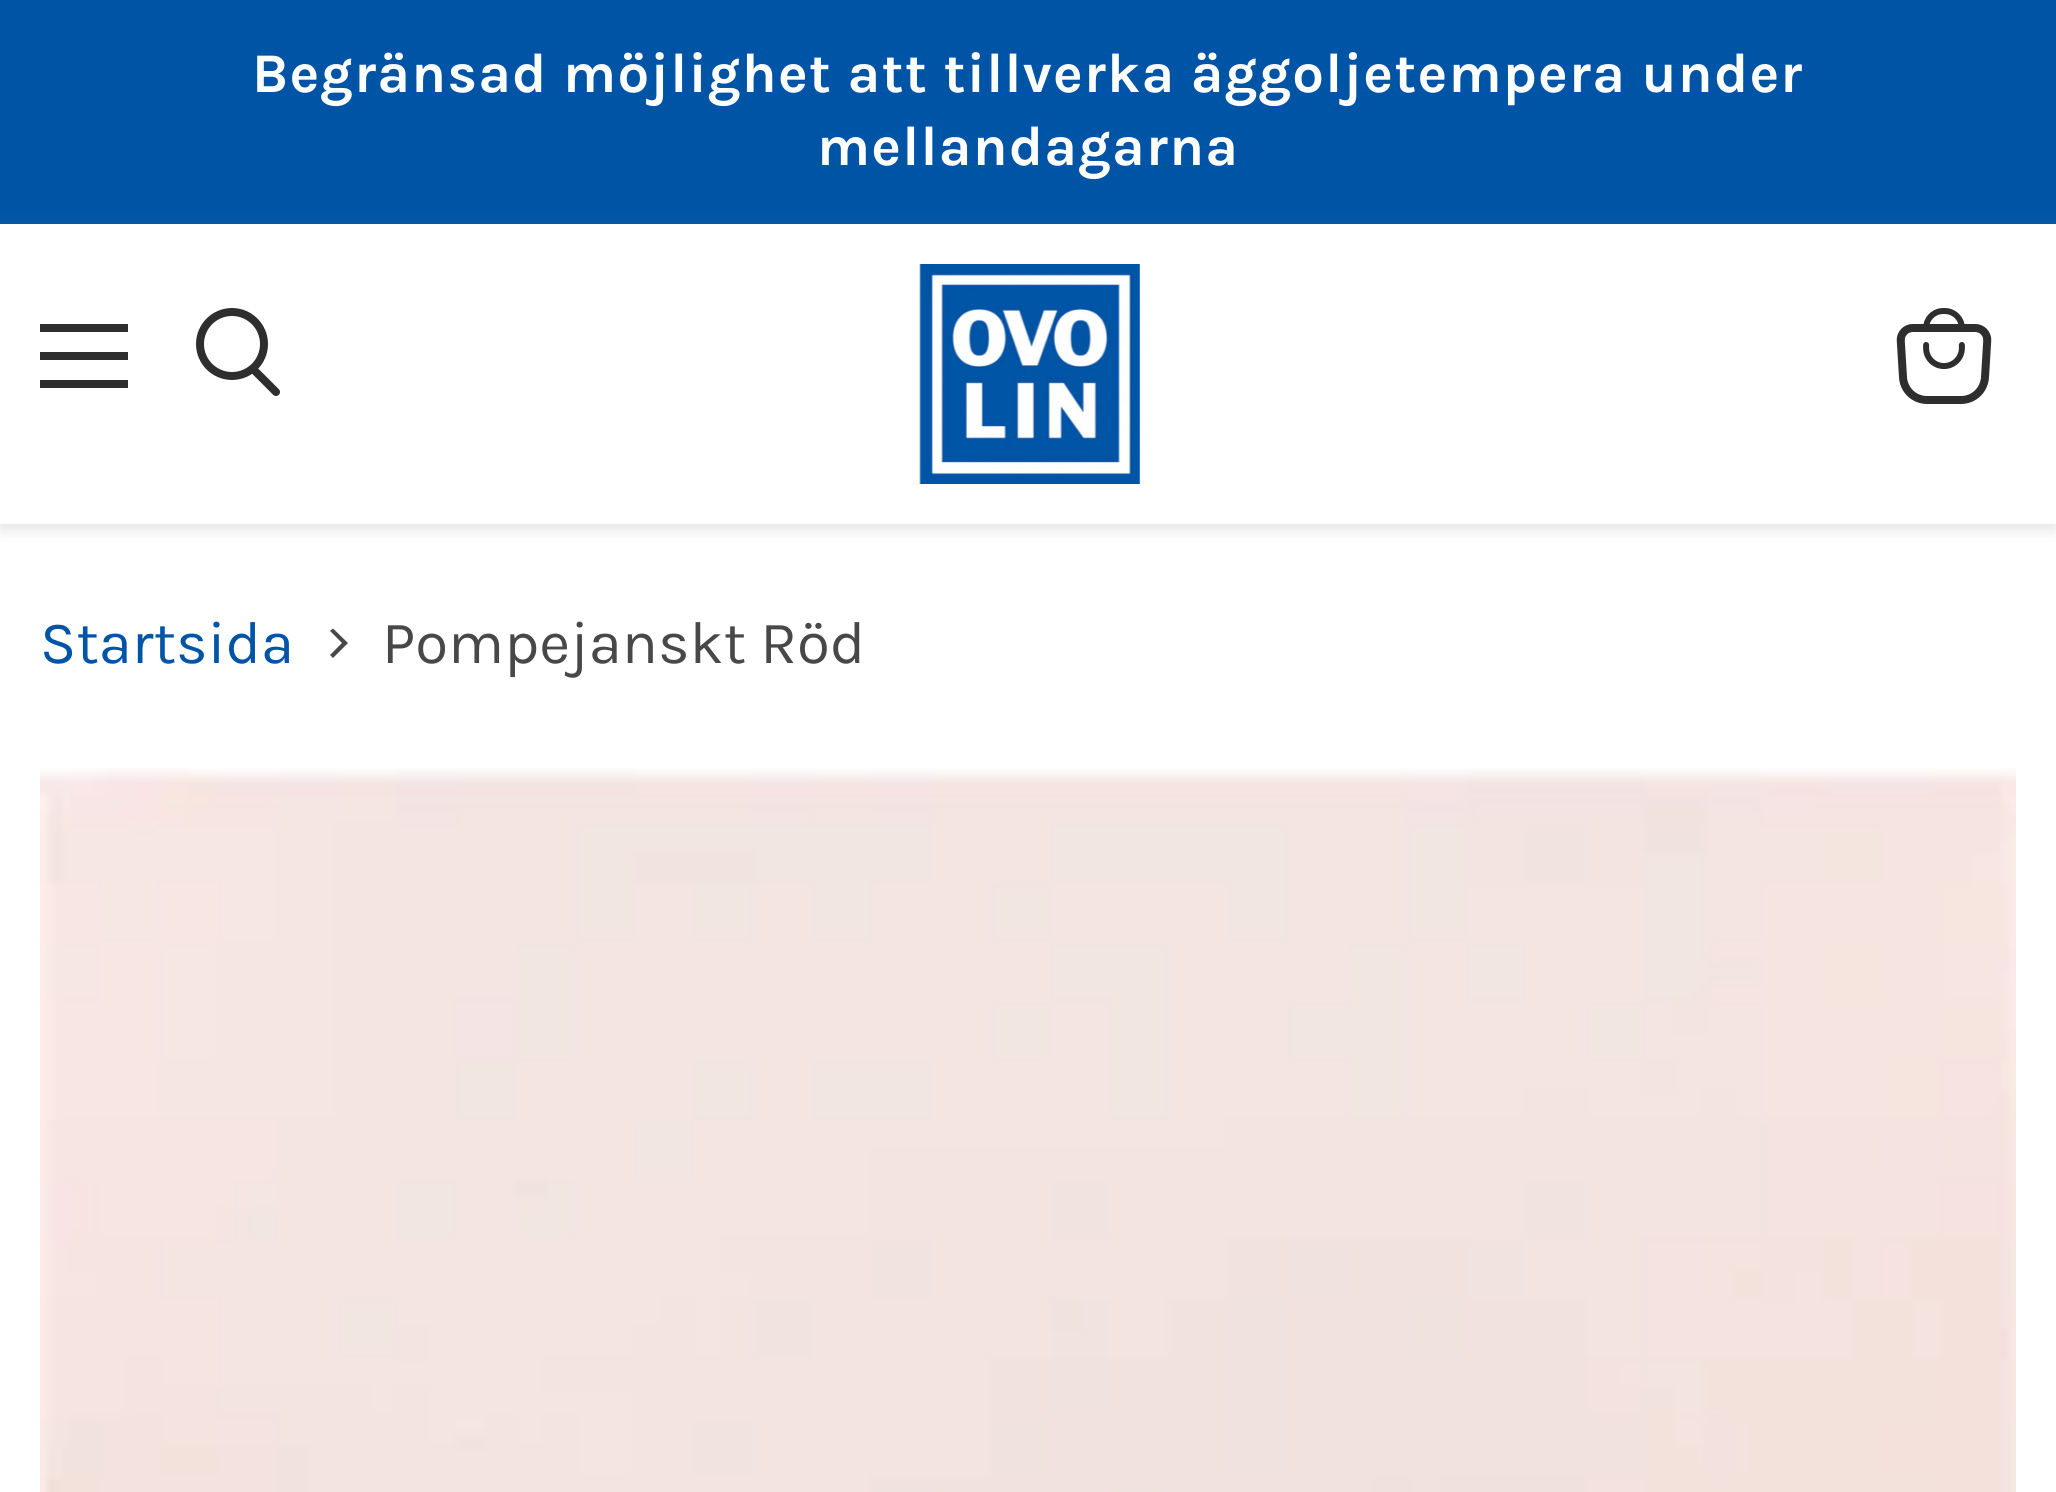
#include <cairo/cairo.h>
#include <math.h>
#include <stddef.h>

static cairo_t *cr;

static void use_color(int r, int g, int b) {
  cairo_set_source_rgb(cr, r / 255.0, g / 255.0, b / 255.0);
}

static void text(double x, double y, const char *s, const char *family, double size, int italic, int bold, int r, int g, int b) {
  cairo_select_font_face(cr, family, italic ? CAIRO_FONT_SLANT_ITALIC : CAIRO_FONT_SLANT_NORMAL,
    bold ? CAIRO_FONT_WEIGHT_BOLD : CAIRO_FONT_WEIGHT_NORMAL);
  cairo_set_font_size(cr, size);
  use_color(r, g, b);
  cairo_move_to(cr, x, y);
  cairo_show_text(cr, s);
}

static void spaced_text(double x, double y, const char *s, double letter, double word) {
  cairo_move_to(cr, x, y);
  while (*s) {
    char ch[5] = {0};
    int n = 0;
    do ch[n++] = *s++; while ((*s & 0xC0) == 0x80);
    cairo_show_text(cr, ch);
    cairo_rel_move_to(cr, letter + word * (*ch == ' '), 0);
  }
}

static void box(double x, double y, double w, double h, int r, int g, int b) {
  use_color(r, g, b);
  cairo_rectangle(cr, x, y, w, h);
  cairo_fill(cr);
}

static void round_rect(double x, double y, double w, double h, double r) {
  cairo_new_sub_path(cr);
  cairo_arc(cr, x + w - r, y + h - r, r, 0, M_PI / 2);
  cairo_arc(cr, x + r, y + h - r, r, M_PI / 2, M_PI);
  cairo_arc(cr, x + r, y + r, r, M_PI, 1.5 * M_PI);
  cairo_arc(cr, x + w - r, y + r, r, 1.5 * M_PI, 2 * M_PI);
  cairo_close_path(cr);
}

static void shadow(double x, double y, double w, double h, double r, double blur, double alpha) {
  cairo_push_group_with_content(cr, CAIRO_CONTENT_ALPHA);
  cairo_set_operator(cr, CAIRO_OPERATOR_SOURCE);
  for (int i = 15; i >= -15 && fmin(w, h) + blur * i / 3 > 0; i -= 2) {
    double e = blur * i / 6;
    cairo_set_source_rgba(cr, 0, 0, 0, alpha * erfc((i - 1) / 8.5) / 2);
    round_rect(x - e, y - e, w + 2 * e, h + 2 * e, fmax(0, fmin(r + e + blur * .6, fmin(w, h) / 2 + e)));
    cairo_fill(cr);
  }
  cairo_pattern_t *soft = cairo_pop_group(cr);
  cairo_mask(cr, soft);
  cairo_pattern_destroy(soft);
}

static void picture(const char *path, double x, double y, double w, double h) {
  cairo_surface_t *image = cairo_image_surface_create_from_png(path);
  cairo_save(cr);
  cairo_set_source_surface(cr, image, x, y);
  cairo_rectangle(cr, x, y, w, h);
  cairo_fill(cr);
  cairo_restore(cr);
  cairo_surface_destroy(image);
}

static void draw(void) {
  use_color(255, 255, 255);
  cairo_paint(cr);
  box(0, 0, 2056, 224, 0, 84, 166);
  cairo_save(cr);
  cairo_set_fill_rule(cr, CAIRO_FILL_RULE_EVEN_ODD);
  cairo_new_path(cr);
  cairo_move_to(cr, 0, 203);
  cairo_line_to(cr, 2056, 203);
  cairo_line_to(cr, 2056, 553);
  cairo_line_to(cr, 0, 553);
  cairo_close_path(cr);
  cairo_move_to(cr, 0, 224);
  cairo_line_to(cr, 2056, 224);
  cairo_line_to(cr, 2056, 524);
  cairo_line_to(cr, 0, 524);
  cairo_close_path(cr);
  cairo_clip(cr);
  use_color(128, 128, 128);
  shadow(0, 228, 2056, 300, 0, 8, 0.25);
  cairo_restore(cr);
  box(40, 324, 88, 8, 46, 46, 46);
  box(40, 352, 88, 8, 46, 46, 46);
  box(40, 380, 88, 8, 46, 46, 46);
  cairo_new_path(cr);
  cairo_move_to(cr, 276, 392);
  cairo_line_to(cr, 254, 370);
  cairo_set_line_width(cr, 8);
  cairo_set_line_cap(cr, CAIRO_LINE_CAP_ROUND);
  cairo_stroke(cr);
  cairo_arc(cr, 232, 344, 32, 0, 2 * M_PI);
  cairo_set_line_cap(cr, CAIRO_LINE_CAP_BUTT);
  cairo_stroke(cr);
  picture("img_01.png", 919, 264, 221, 220);
  picture("img_02.png", 1896, 308, 96, 96);
  use_color(72, 72, 72);
  cairo_set_fill_rule(cr, CAIRO_FILL_RULE_EVEN_ODD);
  cairo_new_path(cr);
  cairo_move_to(cr, 330, 655);
  cairo_line_to(cr, 333, 658);
  cairo_line_to(cr, 348, 643);
  cairo_line_to(cr, 333, 628.5);
  cairo_line_to(cr, 330, 631);
  cairo_line_to(cr, 342, 643);
  cairo_close_path(cr);
  cairo_fill(cr);
  picture("img_03.png", 40, 768, 1976, 724);
  cairo_select_font_face(cr, "Karla", CAIRO_FONT_SLANT_NORMAL, CAIRO_FONT_WEIGHT_BOLD);
  cairo_set_font_size(cr, 56);
  use_color(255, 255, 255);
  spaced_text(252, 92, "Begränsad möjlighet att tillverka äggoljetempera under", 1.2, 0);
  spaced_text(817, 165, "mellandagarna", 1.2, 0);
  text(40, 663, "Startsida", "Karla", 60, 0, 0, 0, 84, 166);
  text(382, 663, "Pompejanskt Röd", "Karla", 60, 0, 0, 72, 72, 72);
}

int main(void) {
  cairo_surface_t *surface = cairo_image_surface_create(CAIRO_FORMAT_RGB24, 2056, 1492);
  cr = cairo_create(surface);
  cairo_font_options_t *options = cairo_font_options_create();
  cairo_font_options_set_hint_metrics(options, CAIRO_HINT_METRICS_OFF);
  cairo_font_options_set_hint_style(options, CAIRO_HINT_STYLE_NONE);
  cairo_set_font_options(cr, options);
  cairo_set_miter_limit(cr, 4);
  draw();
  cairo_surface_write_to_png(surface, "out.png");
  cairo_font_options_destroy(options);
  cairo_destroy(cr);
  cairo_surface_destroy(surface);
  return 0;
}
